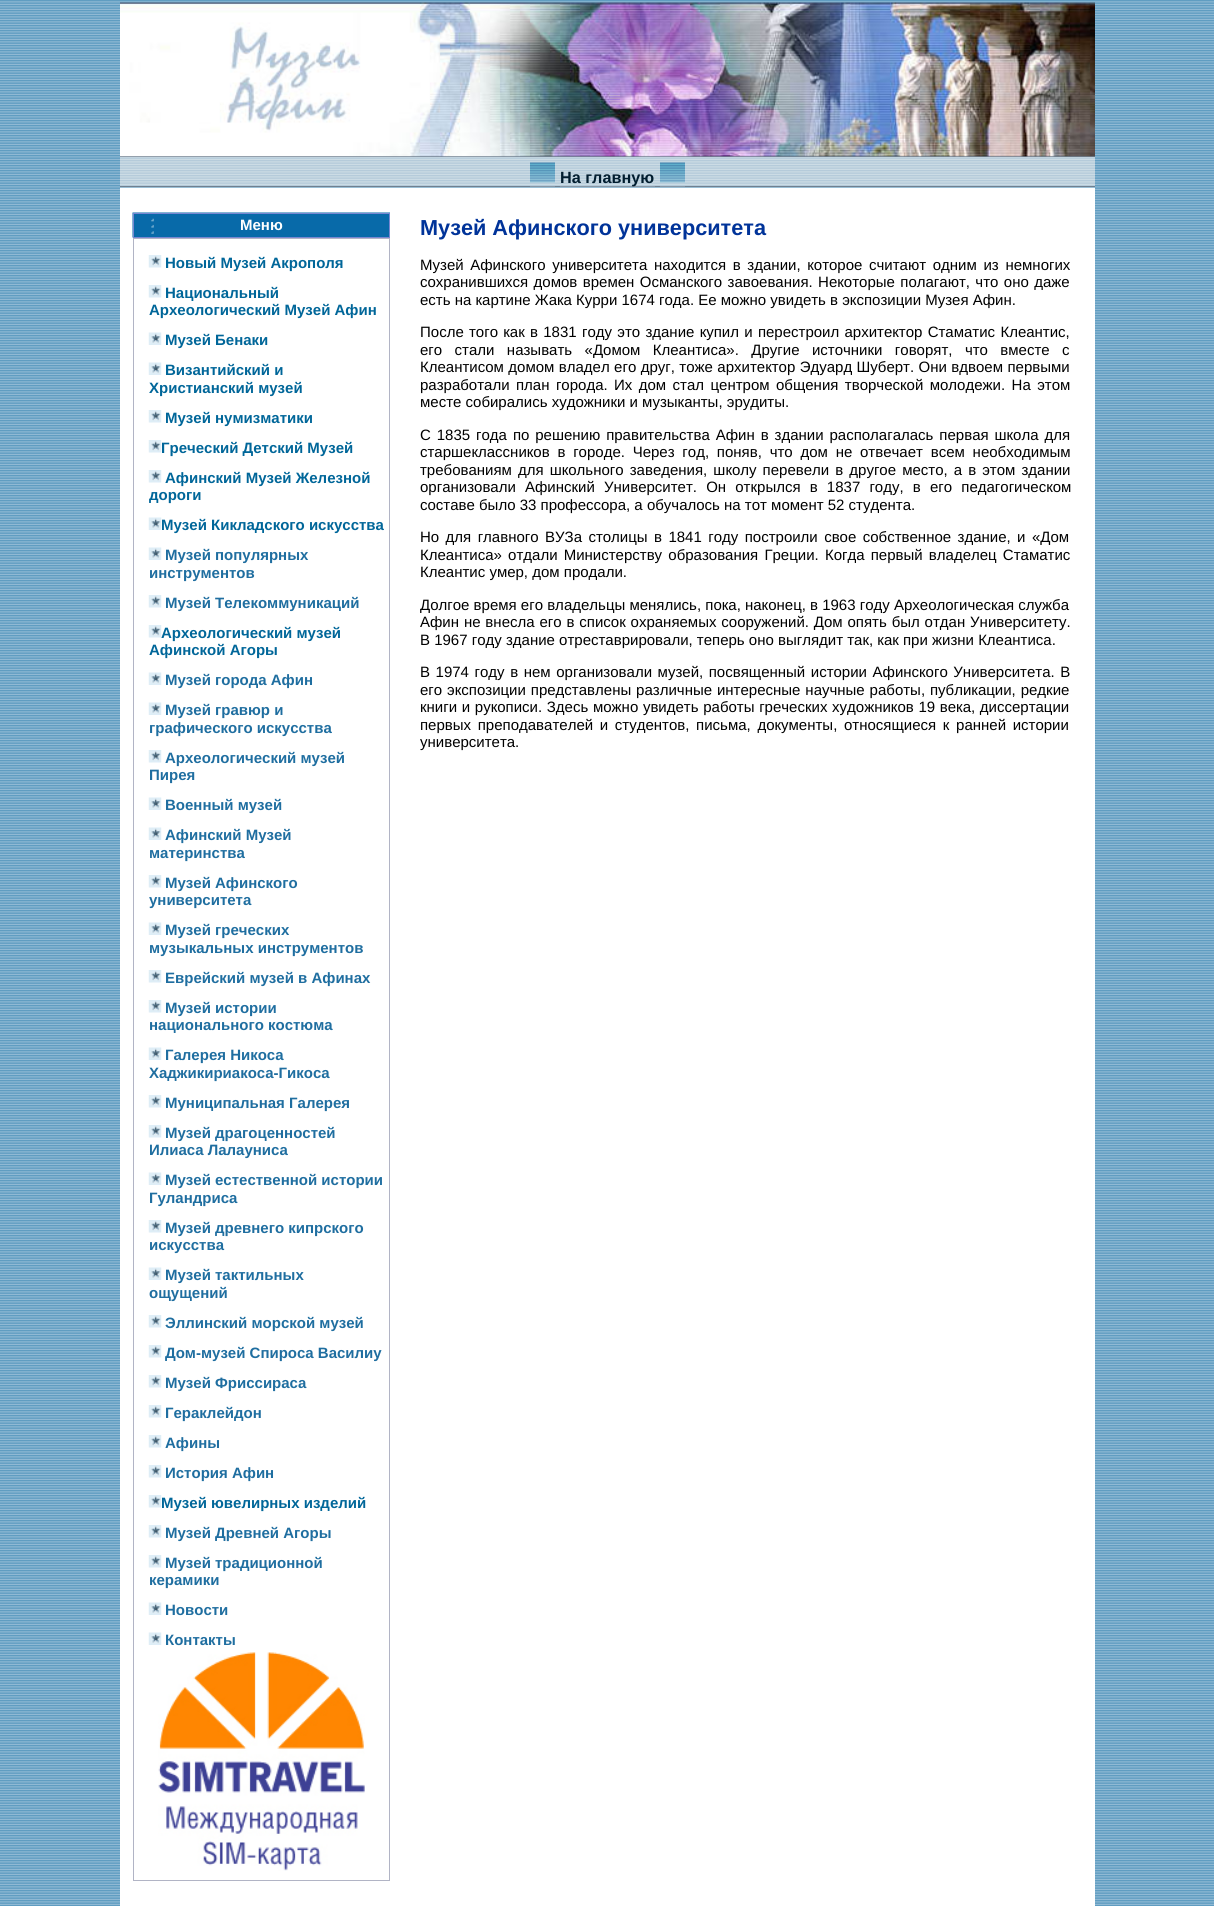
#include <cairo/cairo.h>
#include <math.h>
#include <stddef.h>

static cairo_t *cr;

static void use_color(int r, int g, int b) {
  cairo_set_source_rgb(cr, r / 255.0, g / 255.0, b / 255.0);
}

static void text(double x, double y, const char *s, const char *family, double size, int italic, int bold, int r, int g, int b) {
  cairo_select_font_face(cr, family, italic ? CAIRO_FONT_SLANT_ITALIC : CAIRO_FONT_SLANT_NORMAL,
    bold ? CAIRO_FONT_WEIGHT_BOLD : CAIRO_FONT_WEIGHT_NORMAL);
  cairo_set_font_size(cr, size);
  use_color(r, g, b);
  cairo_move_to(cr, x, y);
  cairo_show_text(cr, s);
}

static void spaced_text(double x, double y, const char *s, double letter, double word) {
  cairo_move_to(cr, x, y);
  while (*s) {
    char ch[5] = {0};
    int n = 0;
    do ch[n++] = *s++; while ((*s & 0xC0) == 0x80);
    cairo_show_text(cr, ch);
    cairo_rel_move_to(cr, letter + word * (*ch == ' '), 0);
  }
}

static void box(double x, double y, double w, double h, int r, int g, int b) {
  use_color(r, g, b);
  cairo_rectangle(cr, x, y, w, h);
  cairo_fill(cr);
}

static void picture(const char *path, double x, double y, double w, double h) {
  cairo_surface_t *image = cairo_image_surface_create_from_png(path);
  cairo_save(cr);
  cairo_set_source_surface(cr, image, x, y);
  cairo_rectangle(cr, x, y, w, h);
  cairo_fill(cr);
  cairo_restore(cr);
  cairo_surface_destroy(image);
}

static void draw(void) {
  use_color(255, 255, 255);
  cairo_paint(cr);
  picture("img_01.png", 0, 0, 1214, 1906);
  box(120, 156, 975, 1, 112, 128, 144);
  picture("img_02.png", 120, 2, 975, 155);
  picture("img_03.png", 120, 157, 975, 31);
  box(120, 186, 975, 1, 112, 128, 144);
  picture("img_04.png", 530, 162, 25, 21);
  box(560, 186, 95, 1, 134, 150, 165);
  picture("img_04.png", 660, 162, 25, 21);
  box(530, 186, 25, 1, 134, 150, 165);
  box(660, 186, 25, 1, 134, 150, 165);
  box(120, 188, 975, 1718, 255, 255, 255);
  picture("img_05.png", 132, 212, 258, 26);
  cairo_rectangle(cr, 133.5, 213.5, 256, 24);
  use_color(119, 135, 210);
  cairo_set_line_width(cr, 1);
  cairo_stroke(cr);
  cairo_rectangle(cr, 133.5, 238.5, 256, 1642);
  use_color(177, 180, 197);
  cairo_stroke(cr);
  picture("img_06.png", 148, 255, 14, 13);
  picture("img_06.png", 148, 285, 14, 13);
  picture("img_07.png", 148, 332, 14, 13);
  picture("img_07.png", 148, 362, 14, 13);
  picture("img_06.png", 148, 410, 14, 13);
  picture("img_06.png", 148, 440, 14, 13);
  picture("img_06.png", 148, 470, 14, 13);
  picture("img_07.png", 148, 517, 14, 13);
  picture("img_07.png", 148, 547, 14, 13);
  picture("img_06.png", 148, 595, 14, 13);
  picture("img_06.png", 148, 625, 14, 13);
  picture("img_07.png", 148, 672, 14, 13);
  picture("img_07.png", 148, 702, 14, 13);
  picture("img_06.png", 148, 750, 14, 13);
  picture("img_07.png", 148, 797, 14, 13);
  picture("img_07.png", 148, 827, 14, 13);
  picture("img_06.png", 148, 875, 14, 13);
  picture("img_07.png", 148, 922, 14, 13);
  picture("img_06.png", 148, 970, 14, 13);
  picture("img_06.png", 148, 1000, 14, 13);
  picture("img_07.png", 148, 1047, 14, 13);
  picture("img_06.png", 148, 1095, 14, 13);
  picture("img_06.png", 148, 1125, 14, 13);
  picture("img_08.png", 148, 1172, 14, 13);
  picture("img_06.png", 148, 1220, 14, 13);
  picture("img_07.png", 148, 1267, 14, 13);
  picture("img_06.png", 148, 1315, 14, 13);
  picture("img_06.png", 148, 1345, 14, 13);
  picture("img_06.png", 148, 1375, 14, 13);
  picture("img_06.png", 148, 1405, 14, 13);
  picture("img_06.png", 148, 1435, 14, 13);
  picture("img_06.png", 148, 1465, 14, 13);
  picture("img_06.png", 148, 1495, 14, 13);
  picture("img_06.png", 148, 1525, 14, 13);
  picture("img_06.png", 148, 1555, 14, 13);
  picture("img_07.png", 148, 1602, 14, 13);
  picture("img_07.png", 148, 1632, 14, 13);
  picture("img_09.png", 158, 1652, 207, 219);
  text(560, 183, "На главную", "Liberation Sans", 16.25, 0, 1, 1, 29, 47);
  text(240, 230, "Меню", "Liberation Sans", 15, 0, 1, 255, 255, 255);
  text(165, 268, "Новый Музей Акрополя", "Liberation Sans", 15, 0, 1, 0, 102, 153);
  text(165, 298, "Национальный", "Liberation Sans", 15, 0, 1, 0, 102, 153);
  text(149, 315, "Археологический Музей Афин", "Liberation Sans", 15, 0, 1, 0, 102, 153);
  text(165, 345, "Музей Бенаки", "Liberation Sans", 15, 0, 1, 0, 102, 153);
  text(165, 375, "Византийский и", "Liberation Sans", 15, 0, 1, 0, 102, 153);
  text(149, 393, "Христианский музей", "Liberation Sans", 15, 0, 1, 0, 102, 153);
  text(165, 423, "Музей нумизматики", "Liberation Sans", 15, 0, 1, 0, 102, 153);
  text(161, 453, "Греческий Детский Музей", "Liberation Sans", 15, 0, 1, 0, 102, 153);
  text(165, 483, "Афинский Музей Железной", "Liberation Sans", 15, 0, 1, 0, 102, 153);
  text(149, 500, "дороги", "Liberation Sans", 15, 0, 1, 0, 102, 153);
  text(161, 530, "Музей Кикладского искусства", "Liberation Sans", 15, 0, 1, 0, 102, 153);
  text(165, 560, "Музей популярных", "Liberation Sans", 15, 0, 1, 31, 110, 160);
  text(149, 578, "инструментов", "Liberation Sans", 15, 0, 1, 31, 110, 160);
  text(165, 608, "Музей Телекоммуникаций", "Liberation Sans", 15, 0, 1, 31, 110, 160);
  text(161, 638, "Археологический музей", "Liberation Sans", 15, 0, 1, 0, 102, 153);
  text(149, 655, "Афинской Агоры", "Liberation Sans", 15, 0, 1, 0, 102, 153);
  text(165, 685, "Музей города Афин", "Liberation Sans", 15, 0, 1, 31, 110, 160);
  text(165, 715, "Музей гравюр и", "Liberation Sans", 15, 0, 1, 31, 110, 160);
  text(149, 733, "графического искусства", "Liberation Sans", 15, 0, 1, 31, 110, 160);
  text(165, 763, "Археологический музей", "Liberation Sans", 15, 0, 1, 31, 110, 160);
  text(149, 780, "Пирея", "Liberation Sans", 15, 0, 1, 31, 110, 160);
  text(165, 810, "Военный музей", "Liberation Sans", 15, 0, 1, 31, 110, 160);
  text(165, 840, "Афинский Музей", "Liberation Sans", 15, 0, 1, 31, 110, 160);
  text(149, 858, "материнства", "Liberation Sans", 15, 0, 1, 31, 110, 160);
  text(165, 888, "Музей Афинского", "Liberation Sans", 15, 0, 1, 31, 110, 160);
  text(149, 905, "университета", "Liberation Sans", 15, 0, 1, 31, 110, 160);
  text(165, 935, "Музей греческих", "Liberation Sans", 15, 0, 1, 31, 110, 160);
  text(149, 953, "музыкальных инструментов", "Liberation Sans", 15, 0, 1, 31, 110, 160);
  text(165, 983, "Еврейский музей в Афинах", "Liberation Sans", 15, 0, 1, 31, 110, 160);
  text(165, 1013, "Музей истории", "Liberation Sans", 15, 0, 1, 31, 110, 160);
  text(149, 1030, "национального костюма", "Liberation Sans", 15, 0, 1, 31, 110, 160);
  text(165, 1060, "Галерея Никоса", "Liberation Sans", 15, 0, 1, 31, 110, 160);
  text(149, 1078, "Хаджикириакоса-Гикоса", "Liberation Sans", 15, 0, 1, 31, 110, 160);
  text(165, 1108, "Муниципальная Галерея", "Liberation Sans", 15, 0, 1, 31, 110, 160);
  text(165, 1138, "Музей драгоценностей", "Liberation Sans", 15, 0, 1, 31, 110, 160);
  text(149, 1155, "Илиаса Лалауниса", "Liberation Sans", 15, 0, 1, 31, 110, 160);
  text(165, 1185, "Музей естественной истории", "Liberation Sans", 15, 0, 1, 31, 110, 160);
  text(149, 1203, "Гуландриса", "Liberation Sans", 15, 0, 1, 31, 110, 160);
  text(165, 1233, "Музей древнего кипрского", "Liberation Sans", 15, 0, 1, 31, 110, 160);
  text(149, 1250, "искусства", "Liberation Sans", 15, 0, 1, 31, 110, 160);
  text(165, 1280, "Музей тактильных", "Liberation Sans", 15, 0, 1, 31, 110, 160);
  text(149, 1298, "ощущений", "Liberation Sans", 15, 0, 1, 31, 110, 160);
  text(165, 1328, "Эллинский морской музей", "Liberation Sans", 15, 0, 1, 31, 110, 160);
  text(165, 1358, "Дом-музей Спироса Василиу", "Liberation Sans", 15, 0, 1, 31, 110, 160);
  text(165, 1388, "Музей Фриссираса", "Liberation Sans", 15, 0, 1, 31, 110, 160);
  text(165, 1418, "Гераклейдон", "Liberation Sans", 15, 0, 1, 31, 110, 160);
  text(165, 1448, "Афины", "Liberation Sans", 15, 0, 1, 31, 110, 160);
  text(165, 1478, "История Афин", "Liberation Sans", 15, 0, 1, 31, 110, 160);
  text(161, 1508, "Музей ювелирных изделий", "Liberation Sans", 15, 0, 1, 0, 102, 153);
  text(165, 1538, "Музей Древней Агоры", "Liberation Sans", 15, 0, 1, 31, 110, 160);
  text(165, 1568, "Музей традиционной", "Liberation Sans", 15, 0, 1, 31, 110, 160);
  text(149, 1585, "керамики", "Liberation Sans", 15, 0, 1, 31, 110, 160);
  text(165, 1615, "Новости", "Liberation Sans", 15, 0, 1, 31, 110, 160);
  text(165, 1645, "Контакты", "Liberation Sans", 15, 0, 1, 31, 110, 160);
  text(420, 235, "Музей Афинского университета", "Liberation Sans", 21.7, 0, 1, 0, 51, 153);
  cairo_select_font_face(cr, "Liberation Sans", CAIRO_FONT_SLANT_NORMAL, CAIRO_FONT_WEIGHT_NORMAL);
  cairo_set_font_size(cr, 15);
  use_color(0, 0, 0);
  spaced_text(420, 270, "Музей Афинского университета находится в здании, которое считают одним из немногих", 0, 2.5);
  spaced_text(420, 287, "сохранившихся домов времен Османского завоевания. Некоторые полагают, что оно даже", 0, 1.25);
  text(420, 305, "есть на картине Жака Курри 1674 года. Ее можно увидеть в экспозиции Музея Афин.", "Liberation Sans", 15, 0, 0, 0, 0, 0);
  spaced_text(420, 337, "После того как в 1831 году это здание купил и перестроил архитектор Стаматис Клеантис,", 0, 1.1);
  spaced_text(420, 355, "его стали называть «Домом Клеантиса». Другие источники говорят, что вместе с", 0, 8.25);
  spaced_text(420, 372, "Клеантисом домом владел его друг, тоже архитектор Эдуард Шуберт. Они вдвоем первыми", 0, 0.25);
  spaced_text(420, 390, "разработали план города. Их дом стал центром общения творческой молодежи. На этом", 0, 2.25);
  text(420, 407, "месте собирались художники и музыканты, эрудиты.", "Liberation Sans", 15, 0, 0, 0, 0, 0);
  spaced_text(420, 440, "С 1835 года по решению правительства Афин в здании располагалась первая школа для", 0, 1.75);
  spaced_text(420, 457, "старшеклассников в городе. Через год, поняв, что дом не отвечает всем необходимым", 0, 3.6);
  spaced_text(420, 475, "требованиям для школьного заведения, школу перевели в другое место, а в этом здании", 0, 1.9);
  spaced_text(420, 492, "организовали Афинский Университет. Он открылся в 1837 году, в его педагогическом", 0, 5);
  text(420, 510, "составе было 33 профессора, а обучалось на тот момент 52 студента.", "Liberation Sans", 15, 0, 0, 0, 0, 0);
  spaced_text(420, 542, "Но для главного ВУЗа столицы в 1841 году построили свое собственное здание, и «Дом", 0, 2.25);
  spaced_text(420, 560, "Клеантиса» отдали Министерству образования Греции. Когда первый владелец Стаматис", 0, 2);
  text(420, 577, "Клеантис умер, дом продали.", "Liberation Sans", 15, 0, 0, 0, 0, 0);
  text(420, 610, "Долгое время его владельцы менялись, пока, наконец, в 1963 году Археологическая служба", "Liberation Sans", 15, 0, 0, 0, 0, 0);
  spaced_text(420, 627, "Афин не внесла его в список охраняемых сооружений. Дом опять был отдан Университету.", 0, 0.7);
  text(420, 645, "В 1967 году здание отреставрировали, теперь оно выглядит так, как при жизни Клеантиса.", "Liberation Sans", 15, 0, 0, 0, 0, 0);
  spaced_text(420, 677, "В 1974 году в нем организовали музей, посвященный истории Афинского Университета. В", 0, 1.4);
  spaced_text(420, 695, "его экспозиции представлены различные интересные научные работы, публикации, редкие", 0, 0.75);
  spaced_text(420, 712, "книги и рукописи. Здесь можно увидеть работы греческих художников 19 века, диссертации", 0, 0.5);
  spaced_text(420, 730, "первых преподавателей и студентов, письма, документы, относящиеся к ранней истории", 0, 2.5);
  text(420, 747, "университета.", "Liberation Sans", 15, 0, 0, 0, 0, 0);
}

int main(void) {
  cairo_surface_t *surface = cairo_image_surface_create(CAIRO_FORMAT_RGB24, 1214, 1906);
  cr = cairo_create(surface);
  cairo_font_options_t *options = cairo_font_options_create();
  cairo_font_options_set_hint_metrics(options, CAIRO_HINT_METRICS_OFF);
  cairo_font_options_set_hint_style(options, CAIRO_HINT_STYLE_NONE);
  cairo_set_font_options(cr, options);
  cairo_set_miter_limit(cr, 4);
  draw();
  cairo_surface_write_to_png(surface, "out.png");
  cairo_font_options_destroy(options);
  cairo_destroy(cr);
  cairo_surface_destroy(surface);
  return 0;
}
